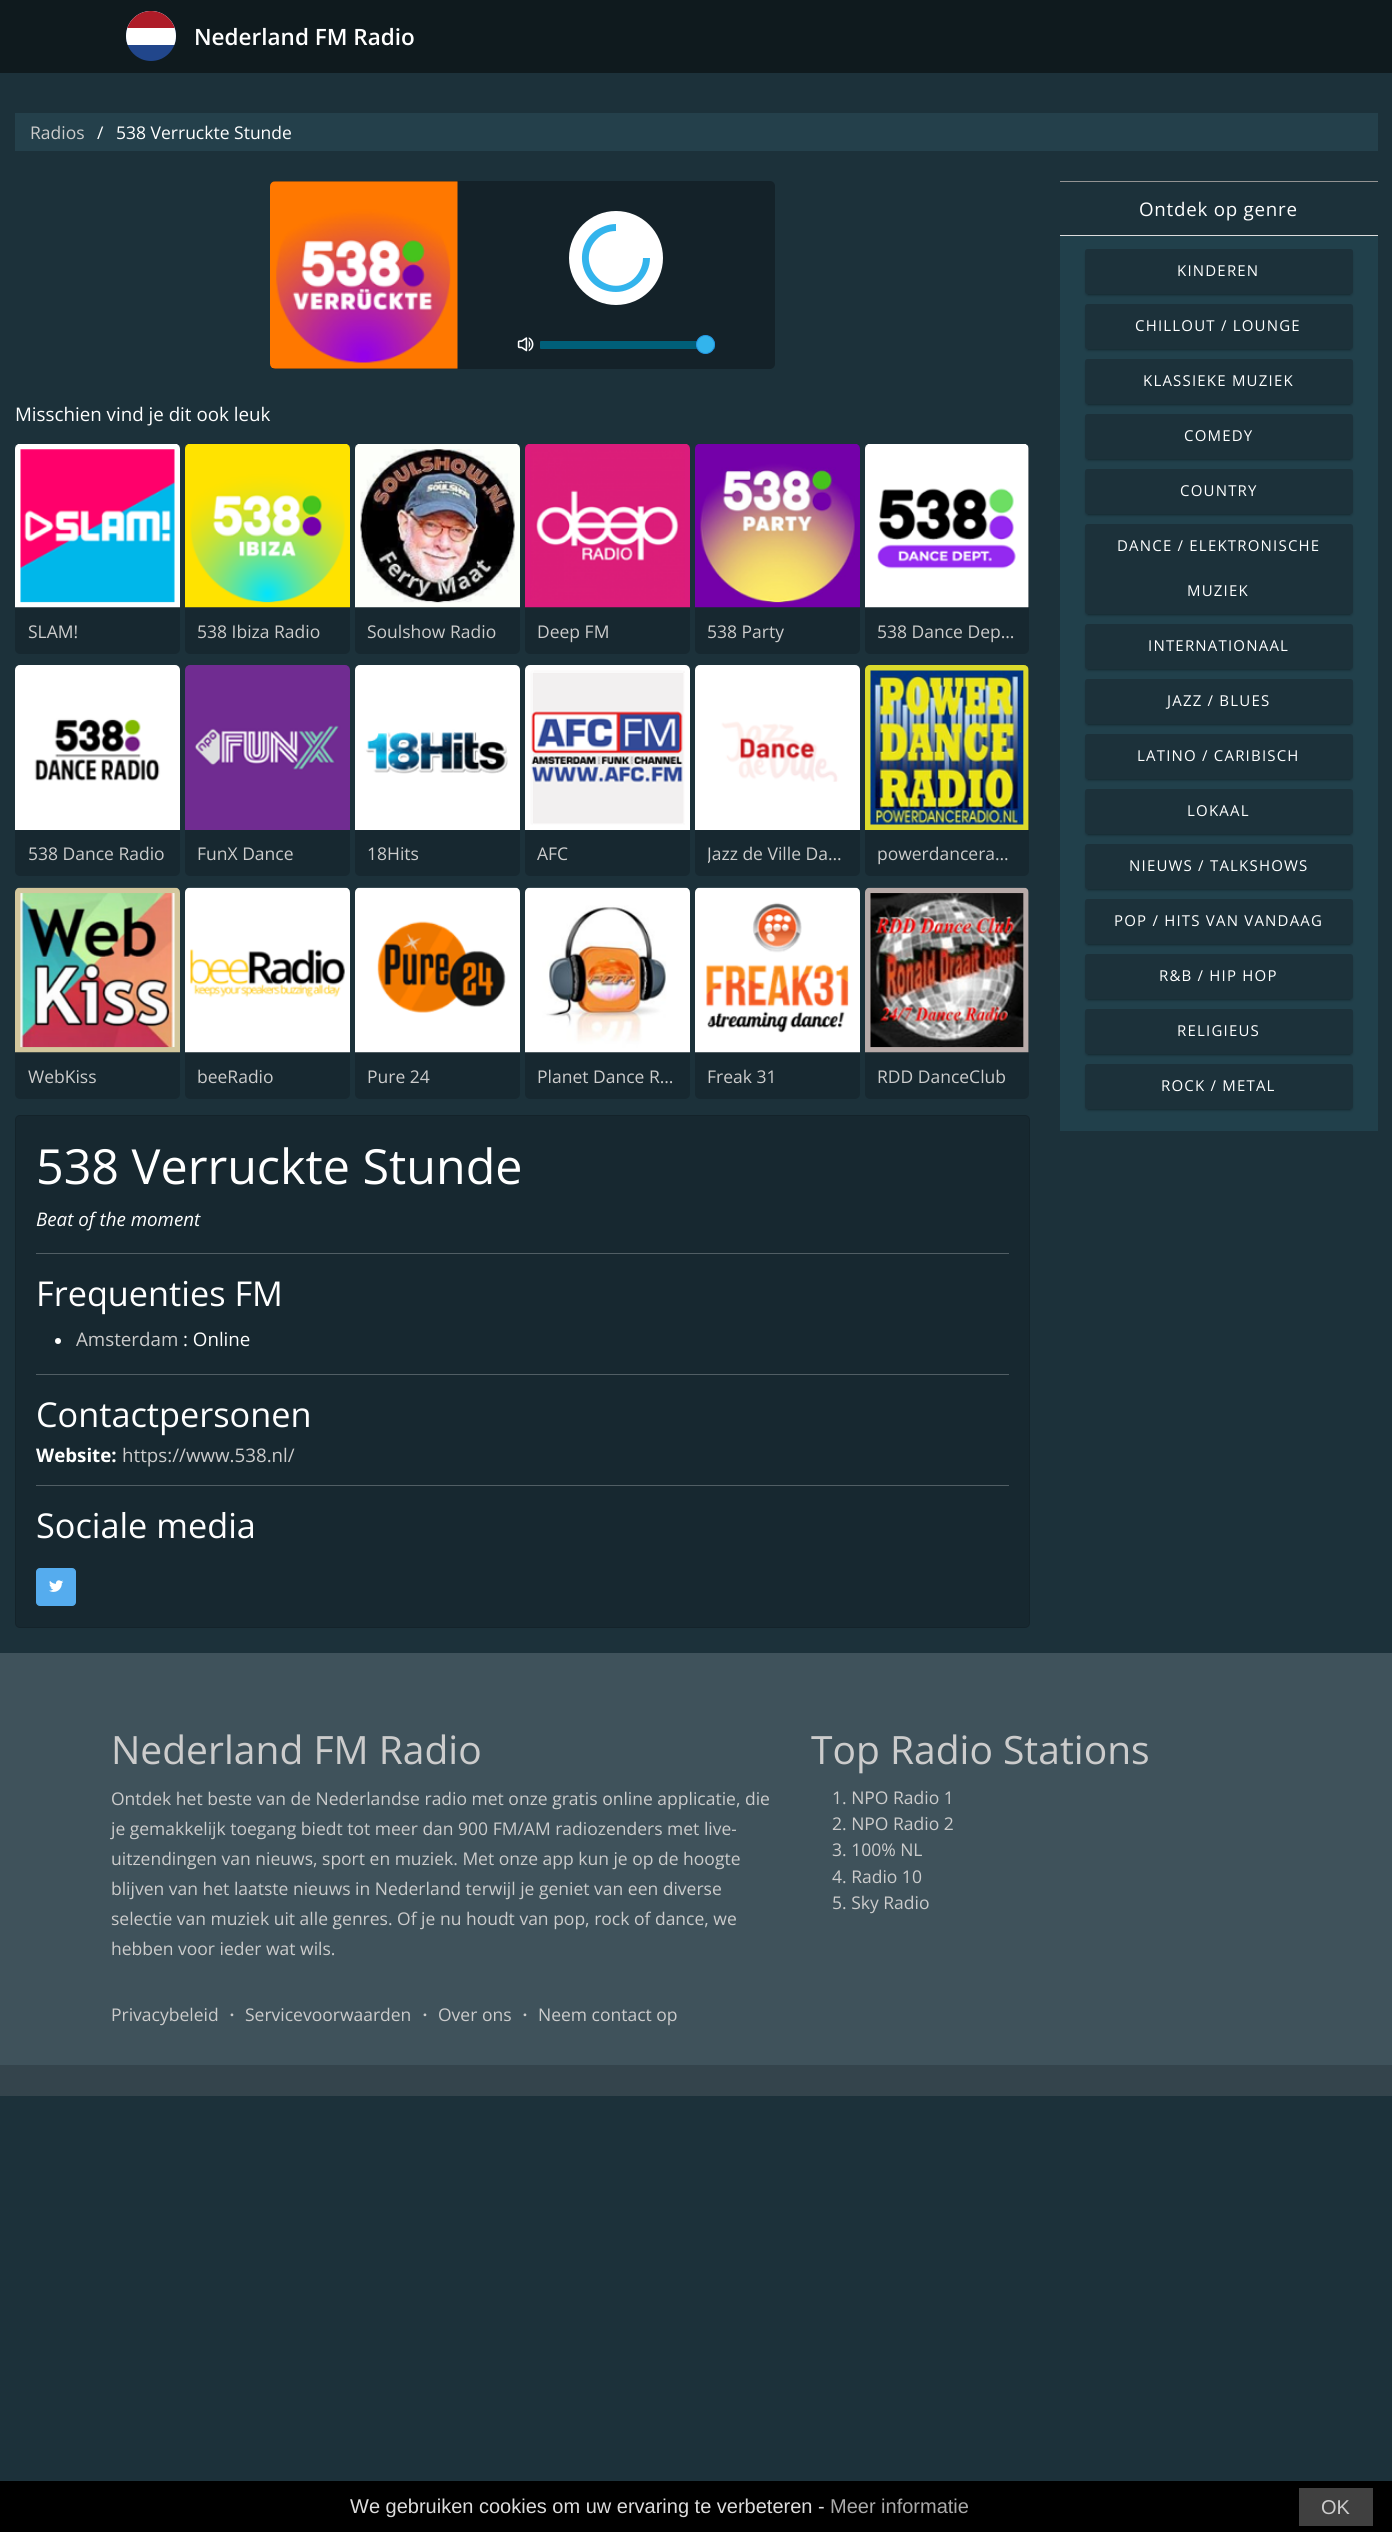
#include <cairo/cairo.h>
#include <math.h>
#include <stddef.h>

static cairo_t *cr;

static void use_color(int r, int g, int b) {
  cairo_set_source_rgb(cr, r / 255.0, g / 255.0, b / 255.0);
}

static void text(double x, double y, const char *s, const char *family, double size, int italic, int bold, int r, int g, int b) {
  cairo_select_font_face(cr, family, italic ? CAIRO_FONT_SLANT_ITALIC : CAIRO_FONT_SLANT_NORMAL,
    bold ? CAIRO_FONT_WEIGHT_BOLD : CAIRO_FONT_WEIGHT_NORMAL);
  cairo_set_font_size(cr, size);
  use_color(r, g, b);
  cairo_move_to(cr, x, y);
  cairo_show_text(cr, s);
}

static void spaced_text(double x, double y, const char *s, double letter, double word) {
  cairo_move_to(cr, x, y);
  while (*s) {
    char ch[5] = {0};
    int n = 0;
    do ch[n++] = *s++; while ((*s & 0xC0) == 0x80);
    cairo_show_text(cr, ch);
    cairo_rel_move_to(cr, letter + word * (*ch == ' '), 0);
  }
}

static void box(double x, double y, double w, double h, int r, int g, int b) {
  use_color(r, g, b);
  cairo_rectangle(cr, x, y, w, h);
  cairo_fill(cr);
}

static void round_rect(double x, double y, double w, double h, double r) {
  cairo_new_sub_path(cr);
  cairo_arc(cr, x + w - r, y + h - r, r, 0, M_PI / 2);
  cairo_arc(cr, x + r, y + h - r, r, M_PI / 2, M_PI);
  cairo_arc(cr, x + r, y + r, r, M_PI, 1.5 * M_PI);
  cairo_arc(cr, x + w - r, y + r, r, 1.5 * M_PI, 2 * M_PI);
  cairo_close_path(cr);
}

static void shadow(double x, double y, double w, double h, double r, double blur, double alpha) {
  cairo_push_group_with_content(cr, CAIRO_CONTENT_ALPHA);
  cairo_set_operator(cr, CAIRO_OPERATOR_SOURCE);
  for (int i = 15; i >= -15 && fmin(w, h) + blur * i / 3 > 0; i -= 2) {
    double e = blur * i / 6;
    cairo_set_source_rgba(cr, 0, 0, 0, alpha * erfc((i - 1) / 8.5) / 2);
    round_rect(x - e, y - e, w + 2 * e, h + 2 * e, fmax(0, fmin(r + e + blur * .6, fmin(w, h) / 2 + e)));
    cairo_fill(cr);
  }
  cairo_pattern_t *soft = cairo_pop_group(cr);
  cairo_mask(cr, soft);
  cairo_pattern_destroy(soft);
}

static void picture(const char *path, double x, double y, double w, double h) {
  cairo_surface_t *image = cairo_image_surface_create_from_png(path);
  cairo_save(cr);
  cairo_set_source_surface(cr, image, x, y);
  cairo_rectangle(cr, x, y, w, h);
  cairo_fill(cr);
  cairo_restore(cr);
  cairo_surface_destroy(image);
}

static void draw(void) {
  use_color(28, 49, 58);
  cairo_paint(cr);
  box(0, 0, 1392, 73, 15, 26, 30);
  use_color(33, 70, 139);
  cairo_arc(cr, 151, 36, 25, 0, 2 * M_PI);
  cairo_fill(cr);
  cairo_save(cr);
  round_rect(126, 11, 50, 50, 25);
  cairo_clip(cr);
  use_color(255, 255, 255);
  cairo_new_path(cr);
  cairo_move_to(cr, 151, 11);
  cairo_curve_to(cr, 165, 11, 176, 22, 176, 36);
  cairo_line_to(cr, 176, 45);
  cairo_line_to(cr, 126, 45);
  cairo_line_to(cr, 126, 36);
  cairo_curve_to(cr, 126, 22, 137, 11, 151, 11);
  cairo_close_path(cr);
  cairo_fill(cr);
  box(127, 11, 48, 17, 174, 28, 40);
  cairo_restore(cr);
  box(15, 113, 1363, 38, 36, 64, 75);
  use_color(20, 34, 41);
  round_rect(270, 181, 505, 188, 5);
  cairo_fill(cr);
  picture("img_01.png", 270, 181, 188, 188);
  use_color(255, 255, 255);
  cairo_arc(cr, 616, 258, 47, 0, 2 * M_PI);
  cairo_fill(cr);
  use_color(51, 180, 236);
  cairo_new_path(cr);
  cairo_move_to(cr, 616, 292);
  cairo_curve_to(cr, 634, 292, 650, 276, 650, 258);
  cairo_line_to(cr, 643, 258);
  cairo_curve_to(cr, 643, 267, 638, 276, 631, 281);
  cairo_curve_to(cr, 604, 299, 574, 262, 597, 239);
  cairo_curve_to(cr, 602, 234, 608, 231, 616, 231);
  cairo_line_to(cr, 616, 224);
  cairo_curve_to(cr, 608, 224, 601, 227, 595, 231);
  cairo_curve_to(cr, 570, 251, 583, 292, 616, 292);
  cairo_close_path(cr);
  cairo_fill(cr);
  picture("img_02.png", 517, 337, 17, 15);
  use_color(0, 95, 121);
  round_rect(540, 341, 175, 8, 1);
  cairo_fill(cr);
  use_color(51, 180, 236);
  cairo_arc(cr, 705.5, 344.5, 9, 0, 2 * M_PI);
  cairo_fill_preserve(cr);
  use_color(36, 151, 227);
  cairo_set_line_width(cr, 1);
  cairo_stroke(cr);
  use_color(23, 40, 48);
  round_rect(15, 444, 165, 210, 5);
  cairo_fill(cr);
  picture("img_03.png", 15, 444, 165, 164);
  round_rect(185, 444, 165, 210, 5);
  cairo_fill(cr);
  picture("img_04.png", 185, 444, 165, 164);
  round_rect(355, 444, 165, 210, 5);
  cairo_fill(cr);
  picture("img_05.png", 355, 444, 165, 164);
  round_rect(525, 444, 165, 210, 5);
  cairo_fill(cr);
  picture("img_06.png", 525, 444, 165, 164);
  round_rect(695, 444, 165, 210, 5);
  cairo_fill(cr);
  picture("img_07.png", 695, 444, 165, 164);
  round_rect(865, 444, 164, 210, 5);
  cairo_fill(cr);
  picture("img_08.png", 865, 444, 164, 164);
  round_rect(15, 665, 165, 211, 5);
  cairo_fill(cr);
  picture("img_09.png", 15, 665, 165, 165);
  round_rect(185, 665, 165, 211, 5);
  cairo_fill(cr);
  picture("img_10.png", 185, 665, 165, 165);
  round_rect(355, 665, 165, 211, 5);
  cairo_fill(cr);
  picture("img_11.png", 355, 665, 165, 165);
  round_rect(525, 665, 165, 211, 5);
  cairo_fill(cr);
  picture("img_12.png", 525, 665, 165, 165);
  round_rect(695, 665, 165, 211, 5);
  cairo_fill(cr);
  picture("img_13.png", 695, 665, 165, 165);
  round_rect(865, 665, 164, 211, 5);
  cairo_fill(cr);
  picture("img_14.png", 865, 665, 164, 165);
  round_rect(15, 888, 165, 211, 5);
  cairo_fill(cr);
  picture("img_15.png", 15, 887, 165, 166);
  round_rect(185, 888, 165, 211, 5);
  cairo_fill(cr);
  picture("img_16.png", 185, 887, 165, 166);
  round_rect(355, 888, 165, 211, 5);
  cairo_fill(cr);
  picture("img_17.png", 355, 887, 165, 166);
  round_rect(525, 888, 165, 211, 5);
  cairo_fill(cr);
  picture("img_18.png", 525, 887, 165, 166);
  round_rect(695, 888, 165, 211, 5);
  cairo_fill(cr);
  picture("img_19.png", 695, 887, 165, 166);
  round_rect(865, 888, 164, 211, 5);
  cairo_fill(cr);
  picture("img_20.png", 865, 887, 164, 166);
  round_rect(15, 1115, 1015, 513, 5);
  cairo_fill(cr);
  round_rect(15.5, 1115.5, 1014, 512, 4.5);
  cairo_set_source_rgba(cr, 0, 0, 0, 0.12);
  cairo_stroke(cr);
  box(36, 1253, 973, 1, 81, 94, 100);
  use_color(255, 255, 255);
  cairo_arc(cr, 58, 1341, 3, 0, 2 * M_PI);
  cairo_fill(cr);
  box(36, 1374, 973, 1, 81, 94, 100);
  box(36, 1485, 973, 1, 81, 94, 100);
  use_color(85, 172, 238);
  round_rect(36.5, 1568.5, 39, 37, 3.5);
  cairo_fill_preserve(cr);
  cairo_stroke(cr);
  picture("img_21.png", 49, 1580, 15, 12);
  box(1060, 181, 318, 1, 147, 147, 147);
  box(1060, 235, 318, 1, 221, 221, 221);
  box(1060, 236, 318, 895, 33, 64, 75);
  use_color(0, 0, 0);
  shadow(1085, 251, 268, 45, 2.5, 1, 0.14);
  shadow(1088, 255, 262, 40, 0, 0.5, 0.2);
  use_color(28, 49, 58);
  round_rect(1085, 249, 268, 45, 2.5);
  cairo_fill(cr);
  use_color(0, 0, 0);
  shadow(1085, 306, 268, 45, 2.5, 1, 0.14);
  shadow(1088, 310, 262, 40, 0, 0.5, 0.2);
  use_color(28, 49, 58);
  round_rect(1085, 304, 268, 45, 2.5);
  cairo_fill(cr);
  use_color(0, 0, 0);
  shadow(1085, 361, 268, 45, 2.5, 1, 0.14);
  shadow(1088, 365, 262, 40, 0, 0.5, 0.2);
  use_color(28, 49, 58);
  round_rect(1085, 359, 268, 45, 2.5);
  cairo_fill(cr);
  use_color(0, 0, 0);
  shadow(1085, 416, 268, 45, 2.5, 1, 0.14);
  shadow(1088, 420, 262, 40, 0, 0.5, 0.2);
  use_color(28, 49, 58);
  round_rect(1085, 414, 268, 45, 2.5);
  cairo_fill(cr);
  use_color(0, 0, 0);
  shadow(1085, 471, 268, 45, 2.5, 1, 0.14);
  shadow(1088, 475, 262, 40, 0, 0.5, 0.2);
  use_color(28, 49, 58);
  round_rect(1085, 469, 268, 45, 2.5);
  cairo_fill(cr);
  use_color(0, 0, 0);
  shadow(1085, 526, 268, 90, 2.5, 1, 0.14);
  shadow(1088, 530, 262, 85, 0, 0.5, 0.2);
  use_color(28, 49, 58);
  round_rect(1085, 524, 268, 90, 2.5);
  cairo_fill(cr);
  use_color(0, 0, 0);
  shadow(1085, 626, 268, 45, 2.5, 1, 0.14);
  shadow(1088, 630, 262, 40, 0, 0.5, 0.2);
  use_color(28, 49, 58);
  round_rect(1085, 624, 268, 45, 2.5);
  cairo_fill(cr);
  use_color(0, 0, 0);
  shadow(1085, 681, 268, 45, 2.5, 1, 0.14);
  shadow(1088, 685, 262, 40, 0, 0.5, 0.2);
  use_color(28, 49, 58);
  round_rect(1085, 679, 268, 45, 2.5);
  cairo_fill(cr);
  use_color(0, 0, 0);
  shadow(1085, 736, 268, 45, 2.5, 1, 0.14);
  shadow(1088, 740, 262, 40, 0, 0.5, 0.2);
  use_color(28, 49, 58);
  round_rect(1085, 734, 268, 45, 2.5);
  cairo_fill(cr);
  use_color(0, 0, 0);
  shadow(1085, 791, 268, 45, 2.5, 1, 0.14);
  shadow(1088, 795, 262, 40, 0, 0.5, 0.2);
  use_color(28, 49, 58);
  round_rect(1085, 789, 268, 45, 2.5);
  cairo_fill(cr);
  use_color(0, 0, 0);
  shadow(1085, 846, 268, 45, 2.5, 1, 0.14);
  shadow(1088, 850, 262, 40, 0, 0.5, 0.2);
  use_color(28, 49, 58);
  round_rect(1085, 844, 268, 45, 2.5);
  cairo_fill(cr);
  use_color(0, 0, 0);
  shadow(1085, 901, 268, 45, 2.5, 1, 0.14);
  shadow(1088, 905, 262, 40, 0, 0.5, 0.2);
  use_color(28, 49, 58);
  round_rect(1085, 899, 268, 45, 2.5);
  cairo_fill(cr);
  use_color(0, 0, 0);
  shadow(1085, 956, 268, 45, 2.5, 1, 0.14);
  shadow(1088, 960, 262, 40, 0, 0.5, 0.2);
  use_color(28, 49, 58);
  round_rect(1085, 954, 268, 45, 2.5);
  cairo_fill(cr);
  use_color(0, 0, 0);
  shadow(1085, 1011, 268, 45, 2.5, 1, 0.14);
  shadow(1088, 1015, 262, 40, 0, 0.5, 0.2);
  use_color(28, 49, 58);
  round_rect(1085, 1009, 268, 45, 2.5);
  cairo_fill(cr);
  use_color(0, 0, 0);
  shadow(1085, 1066, 268, 45, 2.5, 1, 0.14);
  shadow(1088, 1070, 262, 40, 0, 0.5, 0.2);
  use_color(28, 49, 58);
  round_rect(1085, 1064, 268, 45, 2.5);
  cairo_fill(cr);
  box(0, 2065, 1392, 31, 52, 68, 76);
  box(0, 1653, 1392, 412, 63, 82, 91);
  box(0, 2481, 1392, 51, 0, 0, 0);
  box(1299, 2488, 74, 38, 64, 64, 64);
  text(194, 45, "Nederland FM Radio", "Open Sans SemiBold", 22.5, 0, 0, 255, 255, 255);
  text(30, 139, "Radios", "Open Sans", 17.5, 0, 0, 204, 204, 204);
  text(97, 139, "/", "Open Sans", 17.5, 0, 0, 255, 255, 255);
  text(116, 139, "538 Verruckte Stunde", "Open Sans", 17.5, 0, 0, 255, 255, 255);
  text(15, 421, "Misschien vind je dit ook leuk", "Open Sans", 18.75, 0, 0, 255, 255, 255);
  text(28, 638, "SLAM!", "Open Sans", 17.5, 0, 0, 204, 204, 204);
  text(197, 638, "538 Ibiza Radio", "Open Sans", 17.5, 0, 0, 204, 204, 204);
  text(367, 638, "Soulshow Radio", "Open Sans", 17.5, 0, 0, 204, 204, 204);
  text(537, 638, "Deep FM", "Open Sans", 17.5, 0, 0, 204, 204, 204);
  text(707, 638, "538 Party", "Open Sans", 17.5, 0, 0, 204, 204, 204);
  text(877, 638, "538 Dance Dep…", "Open Sans", 17.5, 0, 0, 204, 204, 204);
  text(28, 860, "538 Dance Radio", "Open Sans", 17.5, 0, 0, 204, 204, 204);
  text(197, 860, "FunX Dance", "Open Sans", 17.5, 0, 0, 204, 204, 204);
  text(367, 860, "18Hits", "Open Sans", 17.5, 0, 0, 204, 204, 204);
  text(537, 860, "AFC", "Open Sans", 17.5, 0, 0, 204, 204, 204);
  cairo_save(cr);
  cairo_rectangle(cr, 708, 840, 140, 26);
  cairo_clip(cr);
  text(707, 860, "Jazz de Ville Da…", "Open Sans", 17.5, 0, 0, 204, 204, 204);
  cairo_restore(cr);
  text(877, 860, "powerdancera…", "Open Sans", 17.5, 0, 0, 204, 204, 204);
  text(28, 1083, "WebKiss", "Open Sans", 17.5, 0, 0, 204, 204, 204);
  text(197, 1083, "beeRadio", "Open Sans", 17.5, 0, 0, 204, 204, 204);
  text(367, 1083, "Pure 24", "Open Sans", 17.5, 0, 0, 204, 204, 204);
  text(537, 1083, "Planet Dance R…", "Open Sans", 17.5, 0, 0, 204, 204, 204);
  text(707, 1083, "Freak 31", "Open Sans", 17.5, 0, 0, 204, 204, 204);
  text(877, 1083, "RDD DanceClub", "Open Sans", 17.5, 0, 0, 204, 204, 204);
  text(36, 1184, "538 Verruckte Stunde", "Open Sans", 48.4, 0, 0, 255, 255, 255);
  text(36, 1226, "Beat of the moment", "Open Sans", 18.75, 1, 0, 255, 255, 255);
  text(36, 1306, "Frequenties FM", "Open Sans", 34.25, 0, 0, 255, 255, 255);
  text(76, 1346, "Amsterdam", "Open Sans", 18.75, 0, 0, 204, 204, 204);
  text(183, 1346, ": Online", "Open Sans", 18.75, 0, 0, 255, 255, 255);
  text(36, 1427, "Contactpersonen", "Open Sans", 34.25, 0, 0, 255, 255, 255);
  text(36, 1462, "Website:", "Open Sans", 18.75, 0, 1, 255, 255, 255);
  text(122, 1462, "https://www.538.nl/", "Open Sans", 18.75, 0, 0, 204, 204, 204);
  text(36, 1538, "Sociale media", "Open Sans", 34.25, 0, 0, 255, 255, 255);
  cairo_set_font_size(cr, 18.75);
  spaced_text(1139, 216, "Ontdek op genre", 0.75, 0);
  cairo_set_font_size(cr, 15);
  spaced_text(1177, 276, "KINDEREN", 1.2, 0);
  spaced_text(1135, 331, "CHILLOUT / LOUNGE", 1.2, 0);
  spaced_text(1143, 386, "KLASSIEKE MUZIEK", 1.2, 0);
  spaced_text(1184, 441, "COMEDY", 1.2, 0);
  spaced_text(1180, 496, "COUNTRY", 1.2, 0);
  spaced_text(1117, 551, "DANCE / ELEKTRONISCHE", 1.2, 0);
  spaced_text(1187, 596, "MUZIEK", 1.2, 0);
  spaced_text(1148, 651, "INTERNATIONAAL", 1.2, 0);
  spaced_text(1167, 706, "JAZZ / BLUES", 1.2, 0);
  spaced_text(1137, 761, "LATINO / CARIBISCH", 1.2, 0);
  spaced_text(1187, 816, "LOKAAL", 1.2, 0);
  spaced_text(1129, 871, "NIEUWS / TALKSHOWS", 1.2, 0);
  spaced_text(1114, 926, "POP / HITS VAN VANDAAG", 1.2, 0);
  spaced_text(1159, 981, "R&B / HIP HOP", 1.2, 0);
  spaced_text(1177, 1036, "RELIGIEUS", 1.2, 0);
  spaced_text(1161, 1091, "ROCK / METAL", 1.2, 0);
  text(111, 1764, "Nederland FM Radio", "Open Sans", 39, 0, 0, 204, 204, 204);
  text(111, 1805, "Ontdek het beste van de Nederlandse radio met onze gratis online applicatie, die", "Open Sans", 17.5, 0, 0, 204, 204, 204);
  text(111, 1835, "je gemakkelijk toegang biedt tot meer dan 900 FM/AM radiozenders met live-", "Open Sans", 17.5, 0, 0, 204, 204, 204);
  text(111, 1865, "uitzendingen van nieuws, sport en muziek. Met onze app kun je op de hoogte", "Open Sans", 17.5, 0, 0, 204, 204, 204);
  text(111, 1895, "blijven van het laatste nieuws in Nederland terwijl je geniet van een diverse", "Open Sans", 17.5, 0, 0, 204, 204, 204);
  text(111, 1925, "selectie van muziek uit alle genres. Of je nu houdt van pop, rock of dance, we", "Open Sans", 17.5, 0, 0, 204, 204, 204);
  text(111, 1955, "hebben voor ieder wat wils.", "Open Sans", 17.5, 0, 0, 204, 204, 204);
  text(811, 1764, "Top Radio Stations", "Open Sans", 39, 0, 0, 204, 204, 204);
  text(832, 1804, "1. NPO Radio 1", "Open Sans", 17.5, 0, 0, 204, 204, 204);
  text(832, 1830, "2. NPO Radio 2", "Open Sans", 17.5, 0, 0, 204, 204, 204);
  text(832, 1856, "3. 100% NL", "Open Sans", 17.5, 0, 0, 204, 204, 204);
  text(832, 1883, "4. Radio 10", "Open Sans", 17.5, 0, 0, 204, 204, 204);
  text(832, 1909, "5. Sky Radio", "Open Sans", 17.5, 0, 0, 204, 204, 204);
  text(111, 2021, "Privacybeleid", "Open Sans", 17.5, 0, 0, 204, 204, 204);
  text(223, 2021, "・", "WenQuanYi Zen Hei Medium", 17.5, 0, 0, 204, 204, 204);
  text(245, 2021, "Servicevoorwaarden", "Open Sans", 17.5, 0, 0, 204, 204, 204);
  text(416, 2021, "・", "WenQuanYi Zen Hei Medium", 17.5, 0, 0, 204, 204, 204);
  text(438, 2021, "Over ons", "Open Sans", 17.5, 0, 0, 204, 204, 204);
  text(516, 2021, "・", "WenQuanYi Zen Hei Medium", 17.5, 0, 0, 204, 204, 204);
  text(538, 2021, "Neem contact op", "Open Sans", 17.5, 0, 0, 204, 204, 204);
  text(350, 2513, "We gebruiken cookies om uw ervaring te verbeteren -", "Liberation Sans", 20, 0, 0, 221, 221, 221);
  text(830, 2513, "Meer informatie", "Liberation Sans", 20, 0, 0, 170, 170, 170);
  text(1321, 2514, "OK", "Liberation Sans", 20, 0, 0, 204, 204, 204);
}

int main(void) {
  cairo_surface_t *surface = cairo_image_surface_create(CAIRO_FORMAT_RGB24, 1392, 2532);
  cr = cairo_create(surface);
  cairo_font_options_t *options = cairo_font_options_create();
  cairo_font_options_set_hint_metrics(options, CAIRO_HINT_METRICS_OFF);
  cairo_font_options_set_hint_style(options, CAIRO_HINT_STYLE_NONE);
  cairo_set_font_options(cr, options);
  cairo_set_miter_limit(cr, 4);
  draw();
  cairo_surface_write_to_png(surface, "out.png");
  cairo_font_options_destroy(options);
  cairo_destroy(cr);
  cairo_surface_destroy(surface);
  return 0;
}
